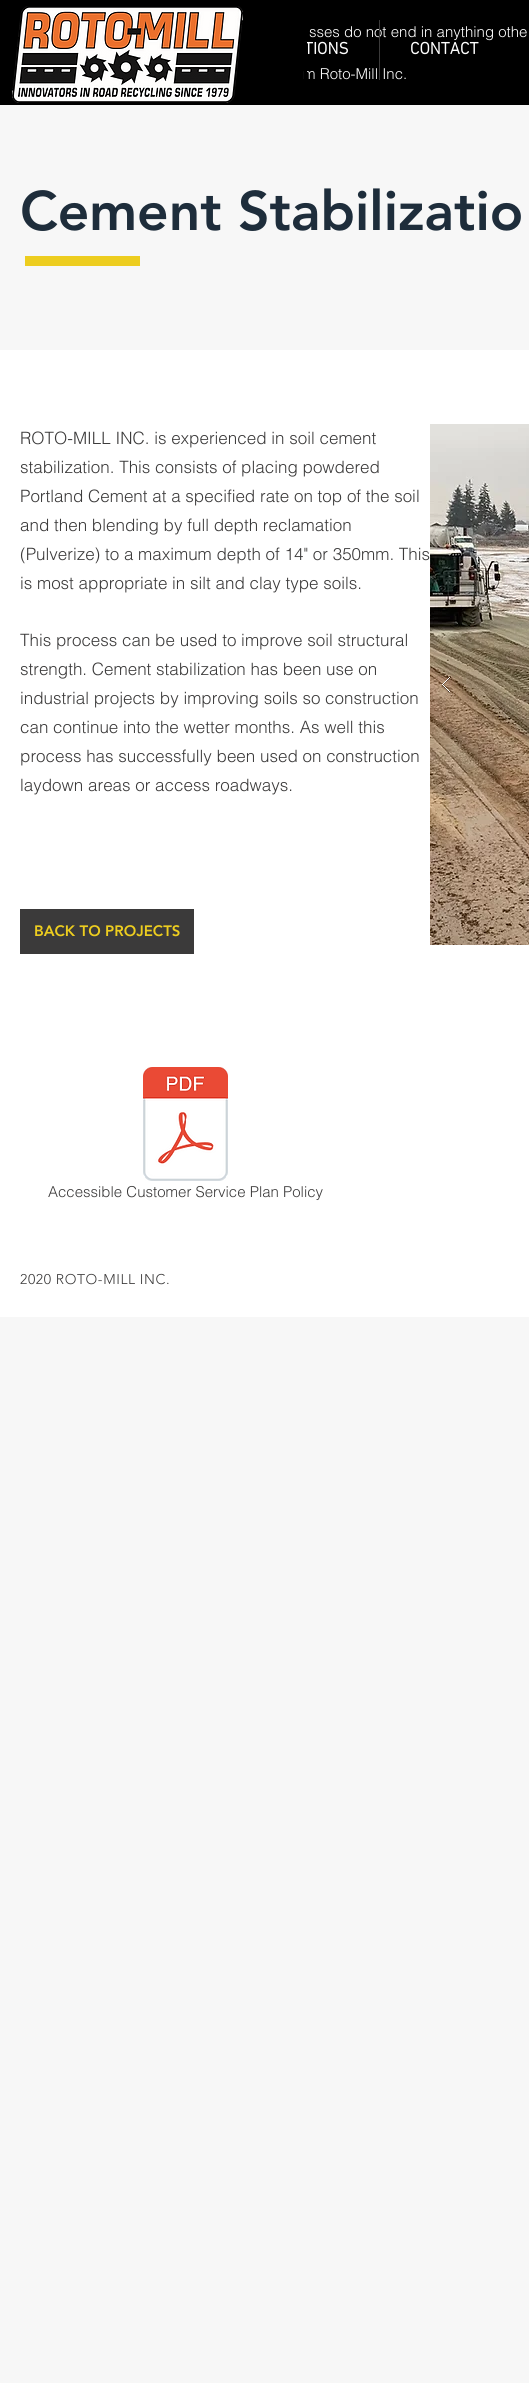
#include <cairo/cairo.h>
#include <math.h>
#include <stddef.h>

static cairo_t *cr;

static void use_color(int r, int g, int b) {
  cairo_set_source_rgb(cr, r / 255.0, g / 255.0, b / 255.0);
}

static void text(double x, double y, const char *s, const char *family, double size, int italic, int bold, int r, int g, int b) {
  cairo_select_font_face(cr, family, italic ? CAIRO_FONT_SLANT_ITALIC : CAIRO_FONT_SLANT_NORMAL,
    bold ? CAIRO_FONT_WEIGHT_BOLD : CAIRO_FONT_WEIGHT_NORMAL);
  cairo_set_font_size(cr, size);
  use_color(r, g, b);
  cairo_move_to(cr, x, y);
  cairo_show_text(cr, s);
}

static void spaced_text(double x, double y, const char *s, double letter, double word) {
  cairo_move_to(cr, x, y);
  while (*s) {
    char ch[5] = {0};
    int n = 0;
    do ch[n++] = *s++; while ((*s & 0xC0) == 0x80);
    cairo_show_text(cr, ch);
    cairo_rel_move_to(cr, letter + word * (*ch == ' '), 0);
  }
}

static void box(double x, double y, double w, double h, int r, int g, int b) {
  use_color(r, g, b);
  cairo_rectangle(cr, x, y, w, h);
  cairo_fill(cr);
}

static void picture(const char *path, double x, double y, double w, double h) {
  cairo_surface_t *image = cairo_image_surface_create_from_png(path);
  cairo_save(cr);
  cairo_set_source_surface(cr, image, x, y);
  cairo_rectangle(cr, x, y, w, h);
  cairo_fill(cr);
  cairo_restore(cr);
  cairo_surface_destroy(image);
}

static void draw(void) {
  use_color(247, 247, 247);
  cairo_paint(cr);
  box(0, 0, 529, 105, 0, 0, 0);
  picture("img_01.png", 12, 6, 231, 97);
  box(25, 256, 115, 10, 237, 205, 31);
  box(0, 350, 529, 967, 255, 255, 255);
  picture("img_02.png", 430, 424, 99, 521);
  picture("img_03.png", 442, 677, 8, 16);
  box(20, 909, 174, 45, 59, 58, 58);
  picture("img_04.png", 143, 1067, 85, 114);
  text(309, 37, "sses do not end in anything othe", "helvetica Light", 15, 0, 0, 255, 255, 255);
  text(303, 79, "m Roto-Mill Inc.", "helvetica Light", 15, 0, 0, 255, 255, 255);
  text(304, 54, "TIONS", "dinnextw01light", 17, 0, 1, 255, 255, 255);
  box(304, 42, 3, 37, 0, 0, 0);
  box(379, 20, 1, 60, 59, 58, 58);
  text(410, 54, "CONTACT", "dinnextw01light", 17, 0, 1, 255, 255, 255);
  text(20, 230, "Cement Stabilizatio", "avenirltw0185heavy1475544 Black", 55, 0, 0, 30, 45, 59);
  text(20, 444, "ROTO-MILL INC. is experienced in soil cement", "helvetica Light", 17, 0, 0, 59, 58, 58);
  text(20, 473, "stabilization. This consists of placing powdered", "helvetica Light", 17, 0, 0, 59, 58, 58);
  text(20, 502, "Portland Cement at a specified rate on top of the soil", "helvetica Light", 17, 0, 0, 59, 58, 58);
  text(20, 531, "and then blending by full depth reclamation", "helvetica Light", 17, 0, 0, 59, 58, 58);
  text(20, 560, "(Pulverize) to a maximum depth of 14\" or 350mm. This", "helvetica Light", 17, 0, 0, 59, 58, 58);
  text(20, 589, "is most appropriate in silt and clay type soils.", "helvetica Light", 17, 0, 0, 59, 58, 58);
  text(20, 646, "This process can be used to improve soil structural", "helvetica Light", 17, 0, 0, 59, 58, 58);
  text(20, 675, "strength. Cement stabilization has been use on", "helvetica Light", 17, 0, 0, 59, 58, 58);
  text(20, 704, "industrial projects by improving soils so construction", "helvetica Light", 17, 0, 0, 59, 58, 58);
  text(20, 733, "can continue into the wetter months. As well this", "helvetica Light", 17, 0, 0, 59, 58, 58);
  text(20, 762, "process has successfully been used on construction", "helvetica Light", 17, 0, 0, 59, 58, 58);
  text(20, 791, "laydown areas or access roadways.", "helvetica Light", 17, 0, 0, 59, 58, 58);
  text(34, 936, "BACK TO PROJECTS", "avenirltw0185heavy1475544 Black", 15, 0, 0, 237, 205, 31);
  text(48, 1197, "Accessible Customer Service Plan Policy", "helvetica Light", 15, 0, 0, 59, 58, 58);
  cairo_select_font_face(cr, "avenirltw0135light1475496 Light", CAIRO_FONT_SLANT_NORMAL, CAIRO_FONT_WEIGHT_NORMAL);
  cairo_set_font_size(cr, 14);
  spaced_text(20, 1284, "2020 ROTO-MILL INC.", 0.6, 0);
}

int main(void) {
  cairo_surface_t *surface = cairo_image_surface_create(CAIRO_FORMAT_RGB24, 529, 2383);
  cr = cairo_create(surface);
  cairo_font_options_t *options = cairo_font_options_create();
  cairo_font_options_set_hint_metrics(options, CAIRO_HINT_METRICS_OFF);
  cairo_font_options_set_hint_style(options, CAIRO_HINT_STYLE_NONE);
  cairo_set_font_options(cr, options);
  cairo_set_miter_limit(cr, 4);
  draw();
  cairo_surface_write_to_png(surface, "out.png");
  cairo_font_options_destroy(options);
  cairo_destroy(cr);
  cairo_surface_destroy(surface);
  return 0;
}
